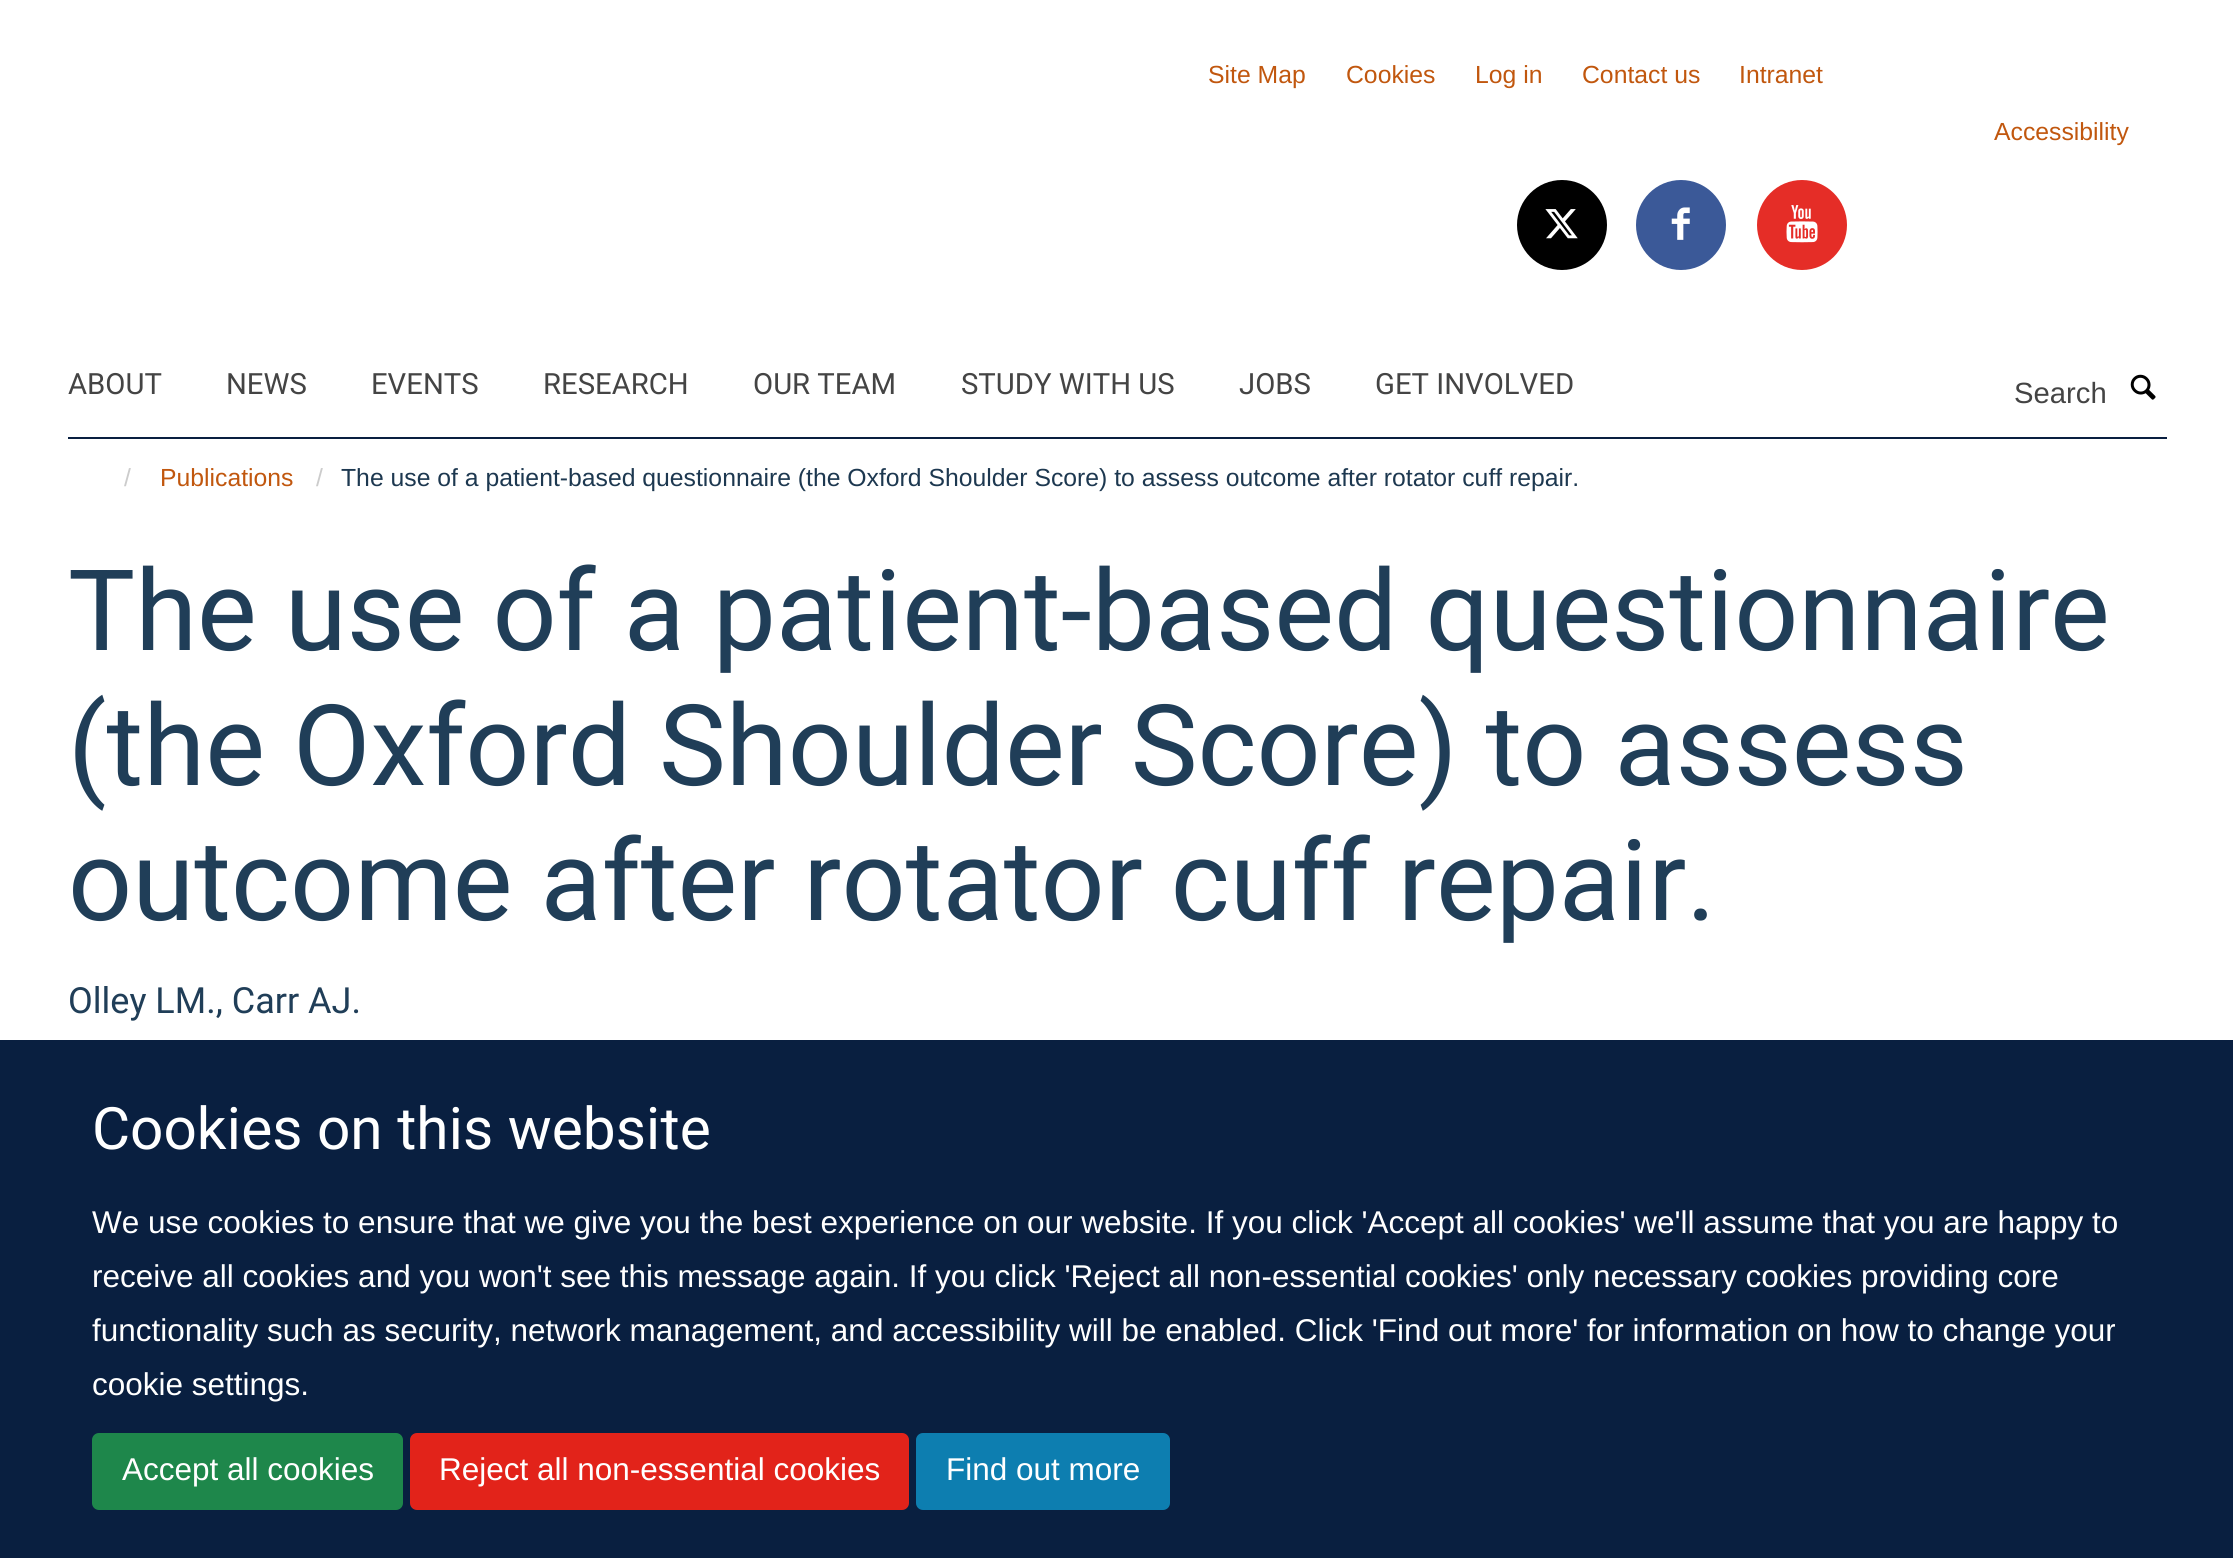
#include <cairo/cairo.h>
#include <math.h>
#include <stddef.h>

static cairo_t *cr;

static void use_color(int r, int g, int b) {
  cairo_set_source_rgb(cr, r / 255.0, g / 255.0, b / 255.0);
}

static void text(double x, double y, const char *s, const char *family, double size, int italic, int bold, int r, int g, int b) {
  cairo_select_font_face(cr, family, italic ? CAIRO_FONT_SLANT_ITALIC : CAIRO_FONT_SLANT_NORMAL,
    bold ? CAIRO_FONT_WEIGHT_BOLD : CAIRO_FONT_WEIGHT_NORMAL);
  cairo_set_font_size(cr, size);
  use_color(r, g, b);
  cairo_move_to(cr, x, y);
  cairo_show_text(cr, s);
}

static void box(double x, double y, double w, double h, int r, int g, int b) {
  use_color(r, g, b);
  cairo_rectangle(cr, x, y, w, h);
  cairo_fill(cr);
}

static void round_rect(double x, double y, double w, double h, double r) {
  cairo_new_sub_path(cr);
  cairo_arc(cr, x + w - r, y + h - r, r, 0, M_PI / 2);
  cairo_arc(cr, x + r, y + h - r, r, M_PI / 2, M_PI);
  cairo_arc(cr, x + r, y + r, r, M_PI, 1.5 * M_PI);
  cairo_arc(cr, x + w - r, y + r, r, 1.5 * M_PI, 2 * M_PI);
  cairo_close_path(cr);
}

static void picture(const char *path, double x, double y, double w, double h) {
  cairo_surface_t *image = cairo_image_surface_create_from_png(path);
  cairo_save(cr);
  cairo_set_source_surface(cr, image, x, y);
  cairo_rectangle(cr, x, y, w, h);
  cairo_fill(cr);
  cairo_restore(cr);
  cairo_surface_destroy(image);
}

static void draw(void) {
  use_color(255, 255, 255);
  cairo_paint(cr);
  use_color(0, 0, 0);
  cairo_arc(cr, 1562, 225, 45, 0, 2 * M_PI);
  cairo_fill(cr);
  picture("img_01.png", 1545, 209, 33, 30);
  use_color(59, 89, 152);
  cairo_arc(cr, 1681, 225, 45, 0, 2 * M_PI);
  cairo_fill(cr);
  picture("img_02.png", 1671, 207, 19, 33);
  use_color(229, 45, 39);
  cairo_arc(cr, 1802, 225, 45, 0, 2 * M_PI);
  cairo_fill(cr);
  picture("img_03.png", 1786, 205, 32, 38);
  box(68, 437, 2099, 2, 9, 31, 64);
  picture("img_04.png", 2130, 374, 26, 26);
  box(0, 1040, 2233, 518, 9, 31, 64);
  use_color(30, 135, 75);
  round_rect(93, 1434, 309, 75, 6);
  cairo_fill_preserve(cr);
  cairo_stroke(cr);
  use_color(226, 35, 26);
  round_rect(411, 1434, 497, 75, 6);
  cairo_fill_preserve(cr);
  cairo_stroke(cr);
  use_color(13, 126, 176);
  round_rect(917, 1434, 252, 75, 6);
  cairo_fill_preserve(cr);
  cairo_stroke(cr);
  text(1208, 83, "Site Map", "Liberation Sans", 24.75, 0, 0, 193, 87, 14);
  text(1346, 83, "Cookies", "Liberation Sans", 24.75, 0, 0, 193, 87, 14);
  text(1475, 83, "Log in", "Liberation Sans", 24.75, 0, 0, 193, 87, 14);
  text(1582, 83, "Contact us", "Liberation Sans", 24.75, 0, 0, 193, 87, 14);
  text(1739, 83, "Intranet", "Liberation Sans", 24.75, 0, 0, 193, 87, 14);
  text(1994, 140, "Accessibility", "Liberation Sans", 24.75, 0, 0, 193, 87, 14);
  text(68, 394, "ABOUT", "Heebo", 29.25, 0, 0, 68, 68, 68);
  text(226, 394, "NEWS", "Heebo", 29.25, 0, 0, 68, 68, 68);
  text(371, 394, "EVENTS", "Heebo", 29.25, 0, 0, 68, 68, 68);
  text(543, 394, "RESEARCH", "Heebo", 29.25, 0, 0, 68, 68, 68);
  text(753, 394, "OUR TEAM", "Heebo", 29.25, 0, 0, 68, 68, 68);
  text(961, 394, "STUDY WITH US", "Heebo", 29.25, 0, 0, 68, 68, 68);
  text(1239, 394, "JOBS", "Heebo", 29.25, 0, 0, 68, 68, 68);
  text(1375, 394, "GET INVOLVED", "Heebo", 29.25, 0, 0, 68, 68, 68);
  text(2014, 403, "Search", "Liberation Sans", 29.25, 0, 0, 68, 68, 68);
  text(124, 486, "/", "Liberation Sans", 24.75, 0, 0, 204, 204, 204);
  text(160, 486, "Publications", "Liberation Sans", 24.75, 0, 0, 193, 87, 14);
  text(316, 486, "/", "Liberation Sans", 24.75, 0, 0, 204, 204, 204);
  text(341, 486, "The use of a patient-based questionnaire (the Oxford Shoulder Score) to assess outcome after rotator cuff repair.", "Liberation Sans", 24.75, 0, 0, 29, 56, 80);
  text(68, 650, "The use of a patient-based questionnaire", "Heebo", 112.5, 0, 0, 32, 62, 88);
  text(68, 785, "(the Oxford Shoulder Score) to assess", "Heebo", 112.5, 0, 0, 32, 62, 88);
  text(68, 920, "outcome after rotator cuff repair.", "Heebo", 112.5, 0, 0, 32, 62, 88);
  text(68, 1013, "Olley LM., Carr AJ.", "Heebo", 36, 0, 0, 32, 62, 88);
  text(92, 1149, "Cookies on this website", "Heebo", 58.5, 0, 0, 255, 255, 255);
  text(92, 1233, "We use cookies to ensure that we give you the best experience on our website. If you click 'Accept all cookies' we'll assume that you are happy to", "Liberation Sans", 31.5, 0, 0, 255, 255, 255);
  text(92, 1287, "receive all cookies and you won't see this message again. If you click 'Reject all non-essential cookies' only necessary cookies providing core", "Liberation Sans", 31.5, 0, 0, 255, 255, 255);
  text(92, 1341, "functionality such as security, network management, and accessibility will be enabled. Click 'Find out more' for information on how to change your", "Liberation Sans", 31.5, 0, 0, 255, 255, 255);
  text(92, 1395, "cookie settings.", "Liberation Sans", 31.5, 0, 0, 255, 255, 255);
  text(122, 1480, "Accept all cookies", "Liberation Sans", 31.5, 0, 0, 255, 255, 255);
  text(439, 1480, "Reject all non-essential cookies", "Liberation Sans", 31.5, 0, 0, 255, 255, 255);
  text(946, 1480, "Find out more", "Liberation Sans", 31.5, 0, 0, 255, 255, 255);
}

int main(void) {
  cairo_surface_t *surface = cairo_image_surface_create(CAIRO_FORMAT_RGB24, 2233, 1558);
  cr = cairo_create(surface);
  cairo_font_options_t *options = cairo_font_options_create();
  cairo_font_options_set_hint_metrics(options, CAIRO_HINT_METRICS_OFF);
  cairo_font_options_set_hint_style(options, CAIRO_HINT_STYLE_NONE);
  cairo_set_font_options(cr, options);
  cairo_set_miter_limit(cr, 4);
  draw();
  cairo_surface_write_to_png(surface, "out.png");
  cairo_font_options_destroy(options);
  cairo_destroy(cr);
  cairo_surface_destroy(surface);
  return 0;
}
